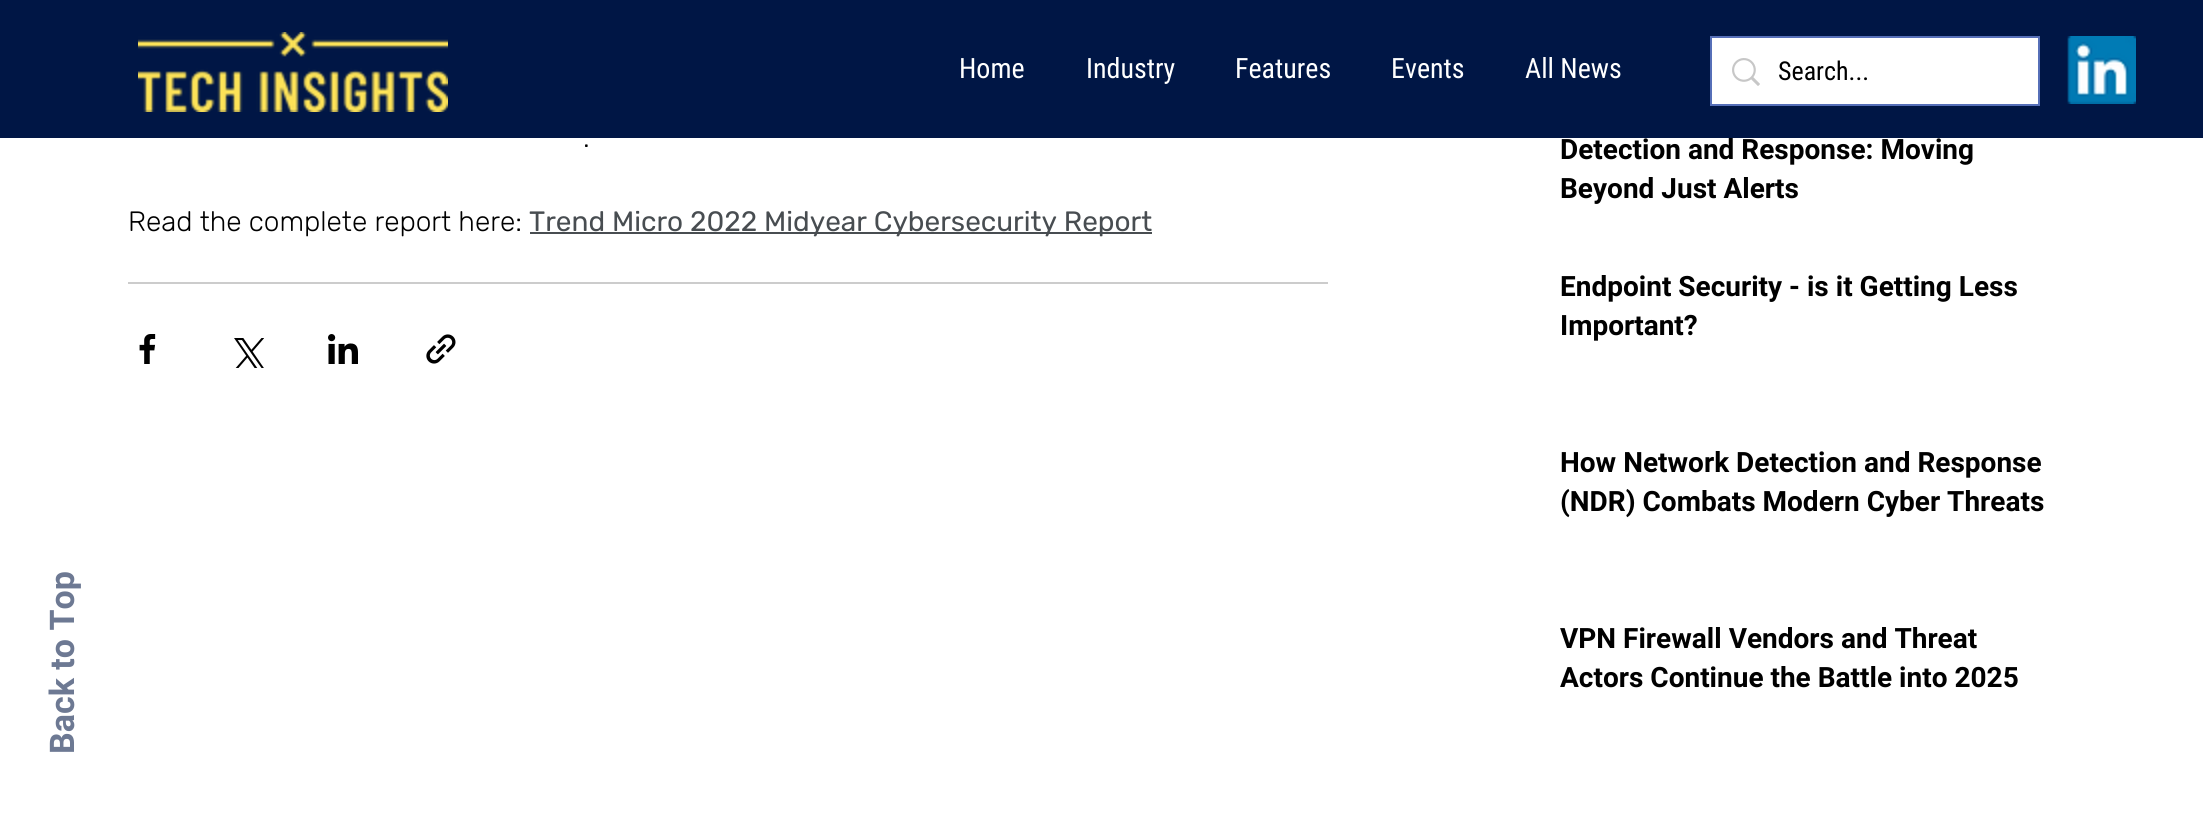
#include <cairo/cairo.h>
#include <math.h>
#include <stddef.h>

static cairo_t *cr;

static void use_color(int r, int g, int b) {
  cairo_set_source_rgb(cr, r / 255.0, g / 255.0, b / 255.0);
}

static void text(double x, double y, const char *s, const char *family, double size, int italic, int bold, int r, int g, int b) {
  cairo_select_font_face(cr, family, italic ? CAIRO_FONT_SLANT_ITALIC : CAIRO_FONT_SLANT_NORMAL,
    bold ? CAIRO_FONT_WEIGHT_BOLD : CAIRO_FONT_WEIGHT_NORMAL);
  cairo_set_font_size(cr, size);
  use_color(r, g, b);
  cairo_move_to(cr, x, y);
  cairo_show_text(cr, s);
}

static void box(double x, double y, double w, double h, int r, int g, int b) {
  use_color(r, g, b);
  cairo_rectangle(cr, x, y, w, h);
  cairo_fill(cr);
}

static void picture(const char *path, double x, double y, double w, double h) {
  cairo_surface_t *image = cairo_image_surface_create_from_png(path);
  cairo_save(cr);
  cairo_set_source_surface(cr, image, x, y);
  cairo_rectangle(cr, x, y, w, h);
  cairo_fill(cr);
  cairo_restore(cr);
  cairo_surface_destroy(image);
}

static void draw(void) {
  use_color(255, 255, 255);
  cairo_paint(cr);
  box(0, 0, 2203, 138, 0, 22, 69);
  picture("img_01.png", 138, 32, 310, 80);
  cairo_rectangle(cr, 1711, 37, 328, 68);
  use_color(86, 111, 184);
  cairo_stroke(cr);
  box(1712, 38, 326, 66, 255, 255, 255);
  picture("img_02.png", 1732, 58, 28, 28);
  picture("img_03.png", 2067, 36, 69, 68);
  box(530, 232, 622, 2, 72, 77, 81);
  box(128, 282, 1200, 2, 204, 204, 204);
  picture("img_04.png", 139, 334, 17, 30);
  picture("img_05.png", 234, 338, 30, 30);
  picture("img_06.png", 328, 334, 30, 30);
  picture("img_07.png", 426, 334, 30, 30);
  text(959, 78, "Home", "Roboto Condensed", 28, 0, 0, 255, 255, 255);
  text(1086, 78, "Industry", "Roboto Condensed", 28, 0, 0, 255, 255, 255);
  text(1235, 78, "Features", "Roboto Condensed", 28, 0, 0, 255, 255, 255);
  text(1391, 78, "Events", "Roboto Condensed", 28, 0, 0, 255, 255, 255);
  text(1525, 78, "All News", "Roboto Condensed", 28, 0, 0, 255, 255, 255);
  text(1778, 80, "Search...", "Roboto Condensed", 26, 0, 0, 0, 0, 0);
  cairo_save(cr);
  cairo_translate(cr, 74, 754);
  cairo_rotate(cr, -90 * M_PI / 180);
  text(0, 0, "Back to Top", "Roboto", 34, 0, 1, 109, 121, 147);
  cairo_restore(cr);
  text(583, 147, ".", "Rubik Light", 28, 0, 0, 0, 0, 0);
  text(128, 231, "Read the complete report here:", "Rubik Light", 28, 0, 0, 0, 0, 0);
  text(529, 231, "Trend Micro 2022 Midyear Cybersecurity Report", "Rubik", 28, 0, 0, 72, 77, 81);
  text(1560, 159, "Detection and Response: Moving", "Roboto", 28, 0, 1, 0, 0, 0);
  text(1560, 198, "Beyond Just Alerts", "Roboto", 28, 0, 1, 0, 0, 0);
  text(1560, 296, "Endpoint Security - is it Getting Less", "Roboto", 28, 0, 1, 0, 0, 0);
  text(1560, 335, "Important?", "Roboto", 28, 0, 1, 0, 0, 0);
  text(1560, 472, "How Network Detection and Response", "Roboto", 28, 0, 1, 0, 0, 0);
  text(1560, 511, "(NDR) Combats Modern Cyber Threats", "Roboto", 28, 0, 1, 0, 0, 0);
  text(1560, 648, "VPN Firewall Vendors and Threat", "Roboto", 28, 0, 1, 0, 0, 0);
  text(1560, 687, "Actors Continue the Battle into 2025", "Roboto", 28, 0, 1, 0, 0, 0);
}

int main(void) {
  cairo_surface_t *surface = cairo_image_surface_create(CAIRO_FORMAT_RGB24, 2203, 826);
  cr = cairo_create(surface);
  cairo_font_options_t *options = cairo_font_options_create();
  cairo_font_options_set_hint_metrics(options, CAIRO_HINT_METRICS_OFF);
  cairo_font_options_set_hint_style(options, CAIRO_HINT_STYLE_NONE);
  cairo_set_font_options(cr, options);
  cairo_set_miter_limit(cr, 4);
  draw();
  cairo_surface_write_to_png(surface, "out.png");
  cairo_font_options_destroy(options);
  cairo_destroy(cr);
  cairo_surface_destroy(surface);
  return 0;
}
